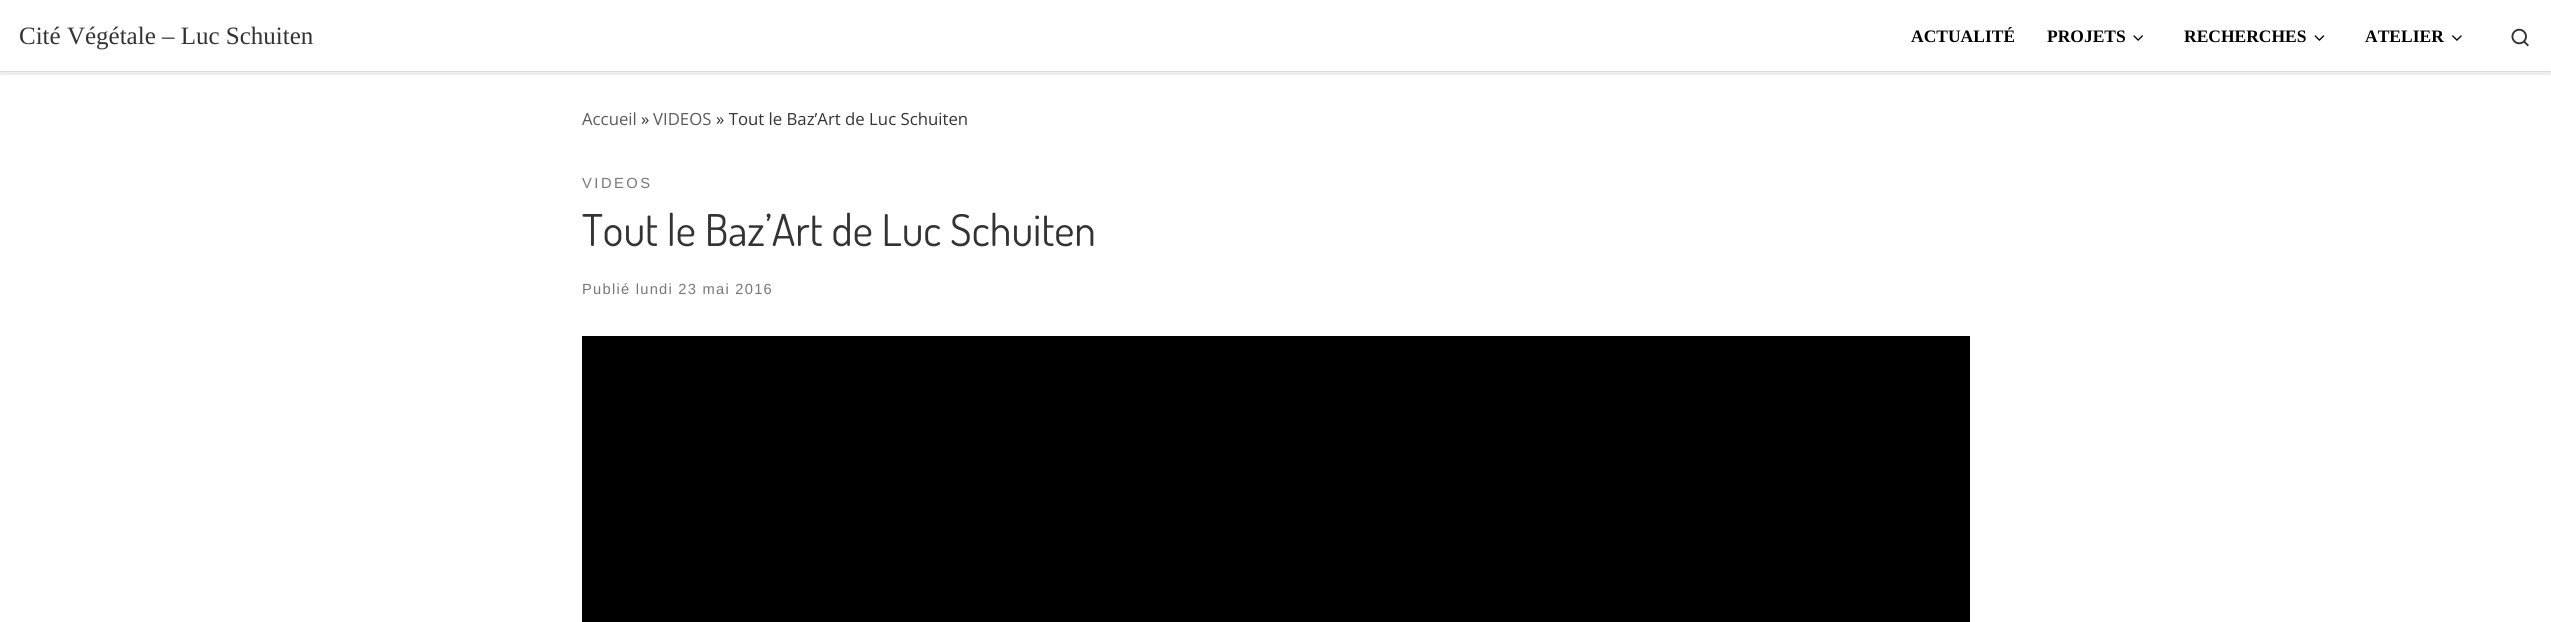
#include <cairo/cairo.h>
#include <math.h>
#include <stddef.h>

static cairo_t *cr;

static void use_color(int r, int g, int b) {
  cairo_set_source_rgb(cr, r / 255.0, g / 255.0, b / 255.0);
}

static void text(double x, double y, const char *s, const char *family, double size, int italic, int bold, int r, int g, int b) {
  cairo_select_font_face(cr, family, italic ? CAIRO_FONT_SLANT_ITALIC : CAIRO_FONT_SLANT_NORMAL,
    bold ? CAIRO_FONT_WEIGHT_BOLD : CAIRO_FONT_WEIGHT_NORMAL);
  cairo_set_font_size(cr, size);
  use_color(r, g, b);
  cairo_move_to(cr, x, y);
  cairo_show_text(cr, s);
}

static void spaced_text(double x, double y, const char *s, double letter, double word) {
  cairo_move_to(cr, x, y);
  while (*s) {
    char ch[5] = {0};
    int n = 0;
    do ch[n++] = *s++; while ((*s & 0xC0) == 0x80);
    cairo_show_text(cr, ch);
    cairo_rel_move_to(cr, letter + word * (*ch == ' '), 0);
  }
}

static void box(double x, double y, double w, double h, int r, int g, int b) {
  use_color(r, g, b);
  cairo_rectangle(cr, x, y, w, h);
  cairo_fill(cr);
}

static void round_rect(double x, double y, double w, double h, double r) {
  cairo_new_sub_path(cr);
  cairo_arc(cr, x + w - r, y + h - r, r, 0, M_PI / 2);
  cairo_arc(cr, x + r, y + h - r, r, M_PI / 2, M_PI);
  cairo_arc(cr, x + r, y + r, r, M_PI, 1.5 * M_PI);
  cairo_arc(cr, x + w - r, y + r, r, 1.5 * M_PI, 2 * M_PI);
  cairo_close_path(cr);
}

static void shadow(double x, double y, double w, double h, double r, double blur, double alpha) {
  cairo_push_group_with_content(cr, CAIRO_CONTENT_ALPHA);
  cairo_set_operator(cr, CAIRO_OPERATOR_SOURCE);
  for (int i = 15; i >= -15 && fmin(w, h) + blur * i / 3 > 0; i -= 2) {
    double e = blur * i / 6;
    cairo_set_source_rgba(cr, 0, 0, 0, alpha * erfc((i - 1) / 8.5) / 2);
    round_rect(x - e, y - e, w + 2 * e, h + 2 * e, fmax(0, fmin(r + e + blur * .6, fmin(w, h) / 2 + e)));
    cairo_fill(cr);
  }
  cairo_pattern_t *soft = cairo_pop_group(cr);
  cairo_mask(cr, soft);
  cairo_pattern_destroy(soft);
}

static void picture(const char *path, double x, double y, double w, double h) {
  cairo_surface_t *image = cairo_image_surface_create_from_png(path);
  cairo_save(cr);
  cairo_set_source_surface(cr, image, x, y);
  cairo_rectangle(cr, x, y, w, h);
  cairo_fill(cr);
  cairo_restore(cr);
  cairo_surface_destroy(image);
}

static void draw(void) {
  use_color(255, 255, 255);
  cairo_paint(cr);
  use_color(102, 102, 102);
  shadow(0, 3, 2551, 72, 0, 1, 0.08);
  box(0, 2, 2551, 71, 255, 255, 255);
  box(0, 71, 2551, 1, 236, 236, 236);
  cairo_set_source_rgba(cr, 1, 1, 1, 0.15);
  cairo_rectangle(cr, 0, 71, 2551, 1);
  cairo_fill(cr);
  cairo_save(cr);
  cairo_rectangle(cr, 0, 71, 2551, 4);
  cairo_clip(cr);
  use_color(0, 0, 0);
  shadow(0, 0, 2551, 71, 0, 3, 0.2);
  cairo_restore(cr);
  picture("img_01.png", 2133, 35, 10, 6);
  picture("img_02.png", 2314, 35, 11, 6);
  picture("img_03.png", 2452, 35, 10, 6);
  picture("img_04.png", 2511, 28, 18, 19);
  box(582, 336, 1388, 286, 0, 0, 0);
  text(19, 44, "Cité Végétale – Luc Schuiten", "Liberation Serif", 25, 0, 0, 51, 51, 51);
  text(1911, 42, "ACTUALITÉ", "Liberation Serif", 17.5, 0, 1, 0, 0, 0);
  text(2047, 42, "PROJETS", "Liberation Serif", 17.5, 0, 1, 0, 0, 0);
  text(2184, 42, "RECHERCHES", "Liberation Serif", 17.5, 0, 1, 0, 0, 0);
  text(2365, 42, "ATELIER", "Liberation Serif", 17.5, 0, 1, 0, 0, 0);
  text(582, 125, "Accueil", "Open Sans", 16.75, 0, 0, 90, 90, 90);
  text(641, 125, "»", "Open Sans", 16.75, 0, 0, 51, 51, 51);
  text(653, 125, "VIDEOS", "Open Sans", 16.75, 0, 0, 90, 90, 90);
  text(716, 125, "» Tout le Baz’Art de Luc Schuiten", "Open Sans", 16.75, 0, 0, 51, 51, 51);
  cairo_select_font_face(cr, "Liberation Sans", CAIRO_FONT_SLANT_NORMAL, CAIRO_FONT_WEIGHT_NORMAL);
  cairo_set_font_size(cr, 14.7);
  use_color(119, 119, 119);
  spaced_text(582, 188, "VIDEOS", 2.5, 0);
  text(582, 246, "Tout le Baz’Art de Luc Schuiten", "Dosis", 43.75, 0, 0, 51, 51, 51);
  cairo_select_font_face(cr, "Liberation Sans", CAIRO_FONT_SLANT_NORMAL, CAIRO_FONT_WEIGHT_NORMAL);
  cairo_set_font_size(cr, 14.7);
  use_color(119, 119, 119);
  spaced_text(582, 294, "Publié lundi 23 mai 2016", 1.25, 0);
}

int main(void) {
  cairo_surface_t *surface = cairo_image_surface_create(CAIRO_FORMAT_RGB24, 2551, 622);
  cr = cairo_create(surface);
  cairo_font_options_t *options = cairo_font_options_create();
  cairo_font_options_set_hint_metrics(options, CAIRO_HINT_METRICS_OFF);
  cairo_font_options_set_hint_style(options, CAIRO_HINT_STYLE_NONE);
  cairo_set_font_options(cr, options);
  cairo_set_miter_limit(cr, 4);
  draw();
  cairo_surface_write_to_png(surface, "out.png");
  cairo_font_options_destroy(options);
  cairo_destroy(cr);
  cairo_surface_destroy(surface);
  return 0;
}
